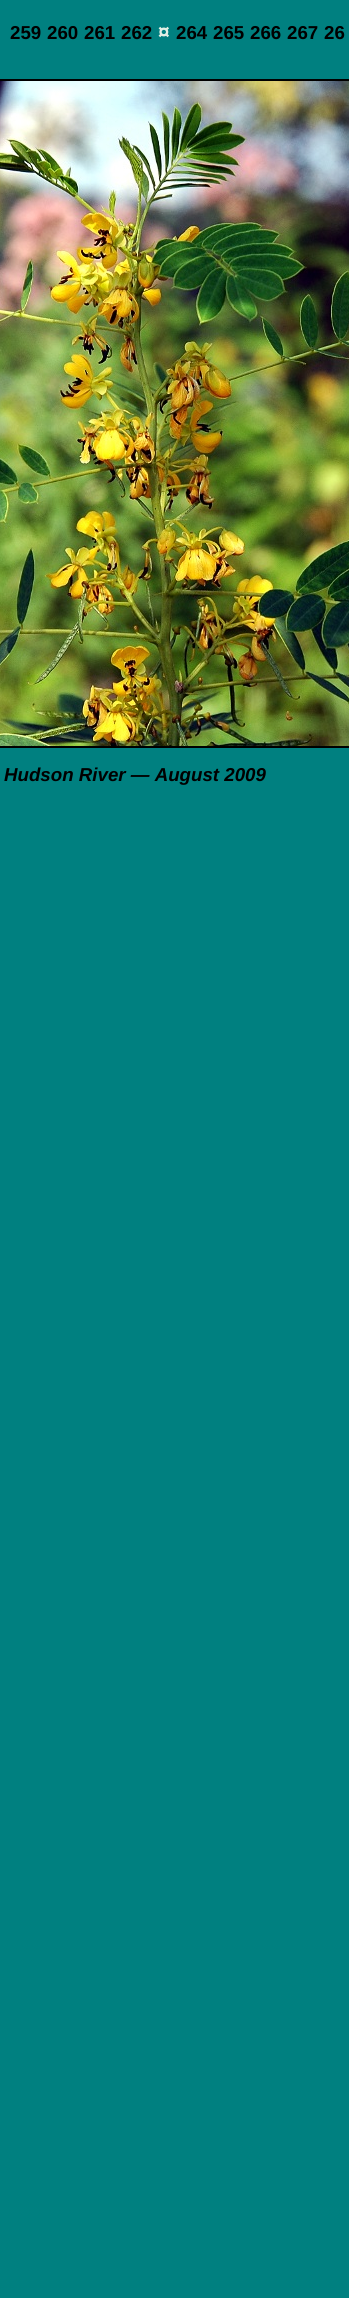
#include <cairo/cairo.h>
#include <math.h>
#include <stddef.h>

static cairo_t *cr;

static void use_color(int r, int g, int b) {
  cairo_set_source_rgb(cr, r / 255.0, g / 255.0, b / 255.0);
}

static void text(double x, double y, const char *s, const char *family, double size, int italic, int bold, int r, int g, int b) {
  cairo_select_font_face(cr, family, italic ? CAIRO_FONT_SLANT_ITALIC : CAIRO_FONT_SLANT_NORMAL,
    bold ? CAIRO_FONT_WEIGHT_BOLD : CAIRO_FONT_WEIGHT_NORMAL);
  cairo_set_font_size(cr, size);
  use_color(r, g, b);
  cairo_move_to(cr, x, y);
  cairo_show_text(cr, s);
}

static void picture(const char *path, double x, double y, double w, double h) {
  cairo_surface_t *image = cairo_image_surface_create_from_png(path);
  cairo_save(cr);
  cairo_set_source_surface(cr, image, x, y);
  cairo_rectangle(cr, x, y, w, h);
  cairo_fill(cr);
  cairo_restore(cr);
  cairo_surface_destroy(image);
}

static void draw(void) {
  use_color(0, 128, 128);
  cairo_paint(cr);
  cairo_rectangle(cr, -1, 80, 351, 667);
  use_color(0, 0, 0);
  cairo_stroke(cr);
  picture("img_01.png", 0, 81, 349, 665);
  text(10, 39, "259", "Liberation Sans", 18.7, 0, 1, 0, 0, 0);
  text(47, 39, "260", "Liberation Sans", 18.7, 0, 1, 0, 0, 0);
  text(84, 39, "261", "Liberation Sans", 18.7, 0, 1, 0, 0, 0);
  text(121, 39, "262", "Liberation Sans", 18.7, 0, 1, 0, 0, 0);
  text(158, 39, "¤", "Liberation Sans", 21, 0, 1, 226, 239, 229);
  text(176, 39, "264", "Liberation Sans", 18.7, 0, 1, 0, 0, 0);
  text(213, 39, "265", "Liberation Sans", 18.7, 0, 1, 0, 0, 0);
  text(250, 39, "266", "Liberation Sans", 18.7, 0, 1, 0, 0, 0);
  text(287, 39, "267", "Liberation Sans", 18.7, 0, 1, 0, 0, 0);
  text(324, 39, "26", "Liberation Sans", 18.7, 0, 1, 0, 0, 0);
  text(4, 781, "Hudson River — August 2009", "Liberation Sans", 18.7, 1, 1, 0, 0, 0);
}

int main(void) {
  cairo_surface_t *surface = cairo_image_surface_create(CAIRO_FORMAT_RGB24, 349, 2298);
  cr = cairo_create(surface);
  cairo_font_options_t *options = cairo_font_options_create();
  cairo_font_options_set_hint_metrics(options, CAIRO_HINT_METRICS_OFF);
  cairo_font_options_set_hint_style(options, CAIRO_HINT_STYLE_NONE);
  cairo_set_font_options(cr, options);
  cairo_set_miter_limit(cr, 4);
  draw();
  cairo_surface_write_to_png(surface, "out.png");
  cairo_font_options_destroy(options);
  cairo_destroy(cr);
  cairo_surface_destroy(surface);
  return 0;
}
